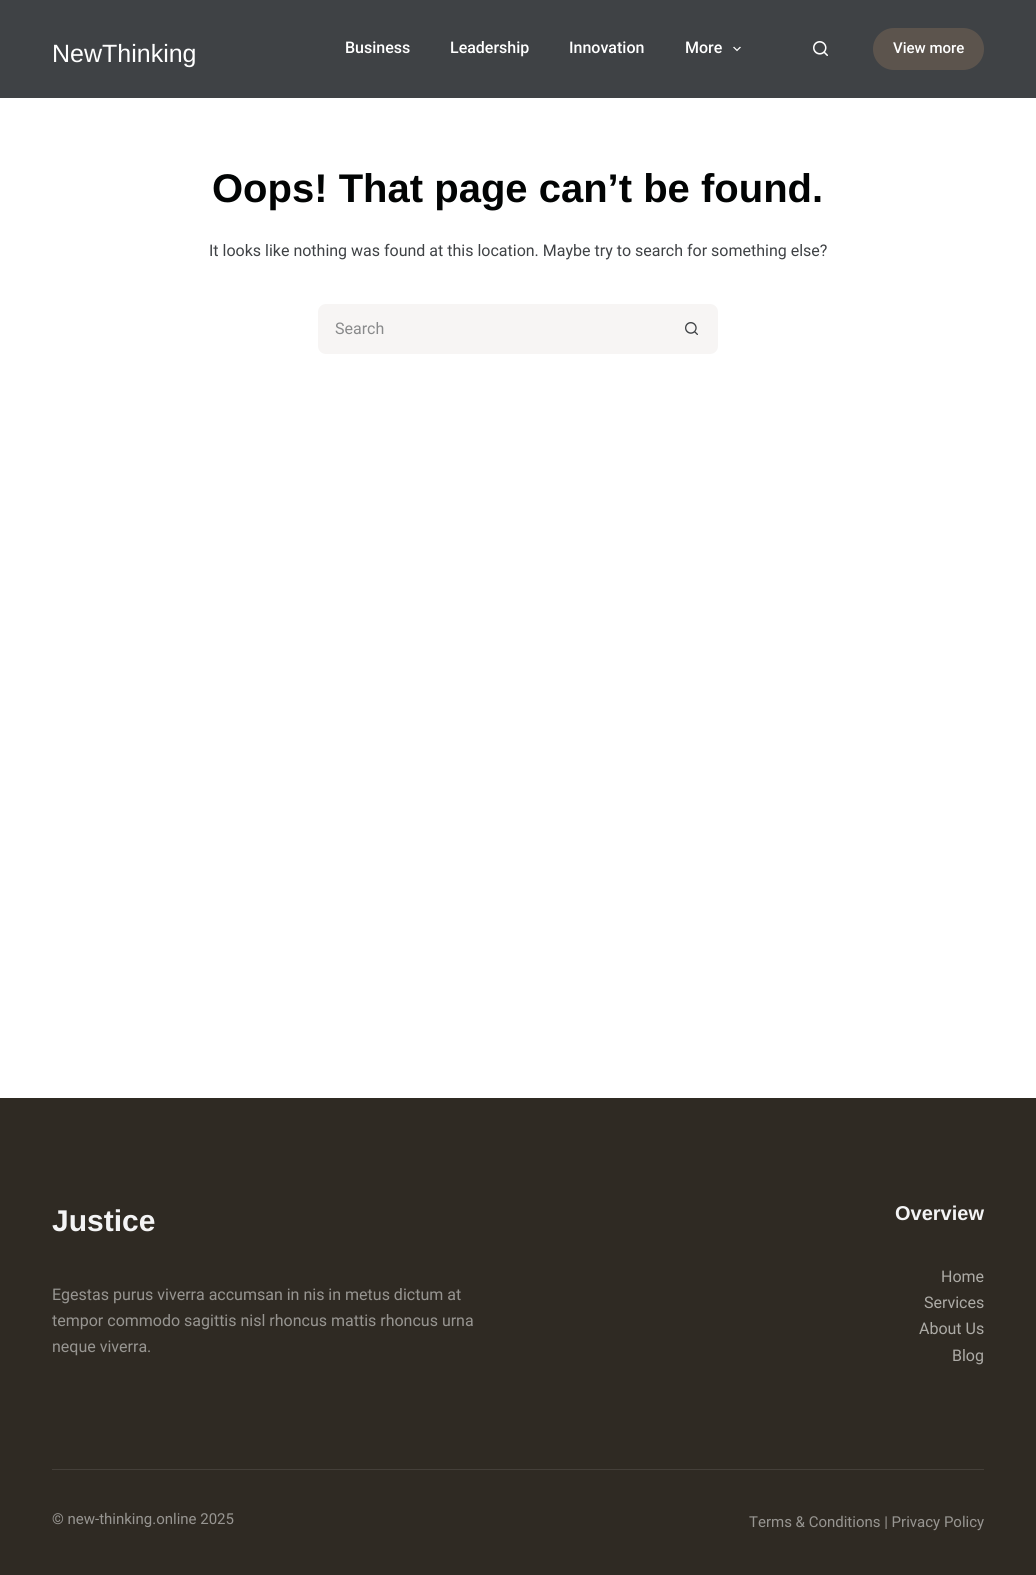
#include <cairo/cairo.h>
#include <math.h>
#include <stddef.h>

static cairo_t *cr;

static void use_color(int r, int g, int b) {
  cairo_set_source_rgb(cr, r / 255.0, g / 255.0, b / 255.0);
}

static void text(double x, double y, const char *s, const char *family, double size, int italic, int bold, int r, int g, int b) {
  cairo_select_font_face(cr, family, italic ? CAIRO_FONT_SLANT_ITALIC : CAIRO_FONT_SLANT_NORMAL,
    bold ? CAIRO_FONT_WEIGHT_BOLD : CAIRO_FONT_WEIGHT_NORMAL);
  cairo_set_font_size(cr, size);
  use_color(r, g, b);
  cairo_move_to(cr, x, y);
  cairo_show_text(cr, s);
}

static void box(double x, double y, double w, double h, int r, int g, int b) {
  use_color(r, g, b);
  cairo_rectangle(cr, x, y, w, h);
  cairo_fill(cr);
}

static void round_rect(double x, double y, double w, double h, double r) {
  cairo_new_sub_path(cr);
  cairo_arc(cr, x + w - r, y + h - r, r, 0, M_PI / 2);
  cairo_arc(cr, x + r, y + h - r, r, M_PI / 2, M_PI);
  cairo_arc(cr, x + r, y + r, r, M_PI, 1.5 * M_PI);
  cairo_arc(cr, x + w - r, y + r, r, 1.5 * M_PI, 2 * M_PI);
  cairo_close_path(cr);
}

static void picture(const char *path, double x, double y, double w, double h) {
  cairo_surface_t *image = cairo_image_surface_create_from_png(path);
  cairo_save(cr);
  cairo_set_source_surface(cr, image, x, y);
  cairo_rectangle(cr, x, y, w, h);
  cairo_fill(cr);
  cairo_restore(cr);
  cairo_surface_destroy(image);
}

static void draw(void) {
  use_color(255, 255, 255);
  cairo_paint(cr);
  box(0, 0, 1036, 98, 63, 66, 69);
  picture("img_01.png", 733, 46, 8, 6);
  picture("img_02.png", 813, 41, 15, 15);
  use_color(92, 84, 77);
  round_rect(873, 28, 111, 42, 21);
  cairo_fill(cr);
  use_color(247, 245, 244);
  cairo_new_path(cr);
  cairo_move_to(cr, 326, 304);
  cairo_line_to(cr, 668, 304);
  cairo_line_to(cr, 668, 354);
  cairo_line_to(cr, 326, 354);
  cairo_curve_to(cr, 321.5, 354, 318, 350.5, 318, 346);
  cairo_line_to(cr, 318, 312);
  cairo_curve_to(cr, 318, 307.5, 321.5, 304, 326, 304);
  cairo_close_path(cr);
  cairo_fill(cr);
  cairo_new_path(cr);
  cairo_move_to(cr, 668, 304);
  cairo_line_to(cr, 710, 304);
  cairo_curve_to(cr, 714.5, 304, 718, 307.5, 718, 312);
  cairo_line_to(cr, 718, 346);
  cairo_curve_to(cr, 718, 350.5, 714.5, 354, 710, 354);
  cairo_line_to(cr, 668, 354);
  cairo_close_path(cr);
  cairo_fill(cr);
  picture("img_03.png", 685, 322, 13, 13);
  box(0, 1098, 1036, 477, 47, 42, 35);
  box(52, 1469, 932, 1, 68, 63, 57);
  text(52, 62, "NewThinking", "Liberation Sans", 25, 0, 0, 255, 255, 255);
  text(345, 53, "Business", "Roboto Medium", 16, 0, 0, 255, 255, 255);
  text(450, 53, "Leadership", "Roboto Medium", 16, 0, 0, 255, 255, 255);
  text(569, 53, "Innovation", "Roboto Medium", 16, 0, 0, 255, 255, 255);
  text(685, 53, "More", "Roboto Medium", 16, 0, 0, 255, 255, 255);
  text(893, 53, "View more", "Roboto Medium", 15, 0, 0, 255, 255, 255);
  text(212, 202, "Oops! That page can’t be found.", "Liberation Sans", 40, 0, 1, 2, 4, 4);
  text(209, 256, "It looks like nothing was found at this location. Maybe try to search for something else?", "Roboto", 16, 0, 0, 63, 66, 69);
  text(335, 334, "Search", "Roboto", 16, 0, 0, 137, 138, 139);
  text(52, 1231, "Justice", "Liberation Sans", 30, 0, 1, 244, 244, 245);
  text(52, 1300, "Egestas purus viverra accumsan in nis in metus dictum at", "Roboto", 16, 0, 0, 151, 149, 145);
  text(52, 1326, "tempor commodo sagittis nisl rhoncus mattis rhoncus urna", "Roboto", 16, 0, 0, 151, 149, 145);
  text(52, 1352, "neque viverra.", "Roboto", 16, 0, 0, 151, 149, 145);
  text(895, 1220, "Overview", "Liberation Sans", 20, 0, 1, 244, 244, 245);
  text(941, 1282, "Home", "Roboto", 16, 0, 0, 173, 171, 166);
  text(924, 1308, "Services", "Roboto", 16, 0, 0, 173, 171, 166);
  text(919, 1334, "About Us", "Roboto", 16, 0, 0, 173, 171, 166);
  text(952, 1361, "Blog", "Roboto", 16, 0, 0, 173, 171, 166);
  text(52, 1524, "© new-thinking.online 2025", "Roboto", 15, 0, 0, 151, 149, 145);
  text(749, 1527, "Terms & Conditions | Privacy Policy", "Roboto", 15, 0, 0, 151, 149, 145);
}

int main(void) {
  cairo_surface_t *surface = cairo_image_surface_create(CAIRO_FORMAT_RGB24, 1036, 1575);
  cr = cairo_create(surface);
  cairo_font_options_t *options = cairo_font_options_create();
  cairo_font_options_set_hint_metrics(options, CAIRO_HINT_METRICS_OFF);
  cairo_font_options_set_hint_style(options, CAIRO_HINT_STYLE_NONE);
  cairo_set_font_options(cr, options);
  cairo_set_miter_limit(cr, 4);
  draw();
  cairo_surface_write_to_png(surface, "out.png");
  cairo_font_options_destroy(options);
  cairo_destroy(cr);
  cairo_surface_destroy(surface);
  return 0;
}
